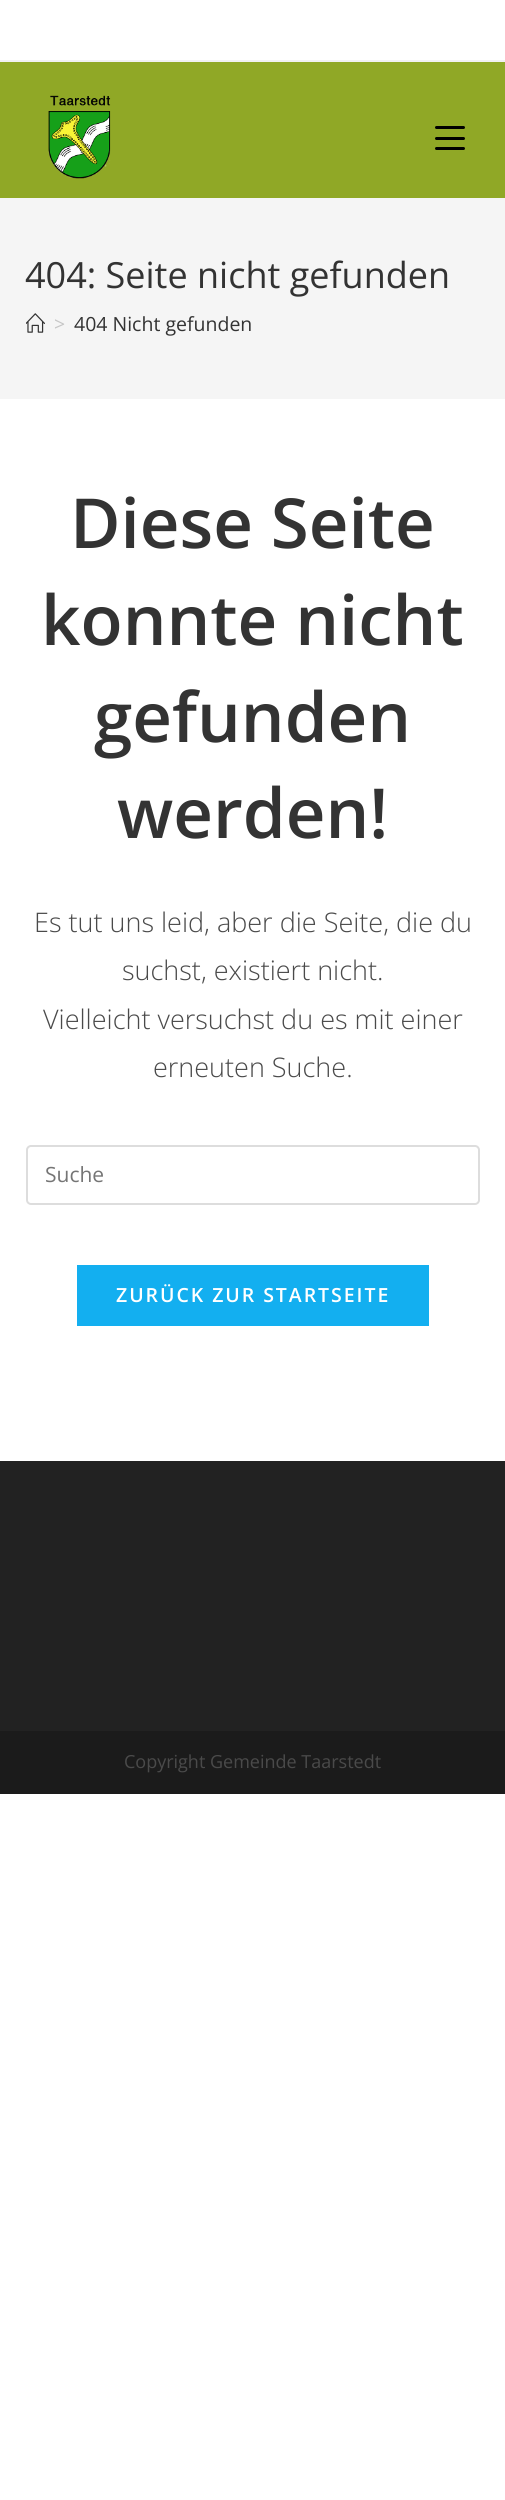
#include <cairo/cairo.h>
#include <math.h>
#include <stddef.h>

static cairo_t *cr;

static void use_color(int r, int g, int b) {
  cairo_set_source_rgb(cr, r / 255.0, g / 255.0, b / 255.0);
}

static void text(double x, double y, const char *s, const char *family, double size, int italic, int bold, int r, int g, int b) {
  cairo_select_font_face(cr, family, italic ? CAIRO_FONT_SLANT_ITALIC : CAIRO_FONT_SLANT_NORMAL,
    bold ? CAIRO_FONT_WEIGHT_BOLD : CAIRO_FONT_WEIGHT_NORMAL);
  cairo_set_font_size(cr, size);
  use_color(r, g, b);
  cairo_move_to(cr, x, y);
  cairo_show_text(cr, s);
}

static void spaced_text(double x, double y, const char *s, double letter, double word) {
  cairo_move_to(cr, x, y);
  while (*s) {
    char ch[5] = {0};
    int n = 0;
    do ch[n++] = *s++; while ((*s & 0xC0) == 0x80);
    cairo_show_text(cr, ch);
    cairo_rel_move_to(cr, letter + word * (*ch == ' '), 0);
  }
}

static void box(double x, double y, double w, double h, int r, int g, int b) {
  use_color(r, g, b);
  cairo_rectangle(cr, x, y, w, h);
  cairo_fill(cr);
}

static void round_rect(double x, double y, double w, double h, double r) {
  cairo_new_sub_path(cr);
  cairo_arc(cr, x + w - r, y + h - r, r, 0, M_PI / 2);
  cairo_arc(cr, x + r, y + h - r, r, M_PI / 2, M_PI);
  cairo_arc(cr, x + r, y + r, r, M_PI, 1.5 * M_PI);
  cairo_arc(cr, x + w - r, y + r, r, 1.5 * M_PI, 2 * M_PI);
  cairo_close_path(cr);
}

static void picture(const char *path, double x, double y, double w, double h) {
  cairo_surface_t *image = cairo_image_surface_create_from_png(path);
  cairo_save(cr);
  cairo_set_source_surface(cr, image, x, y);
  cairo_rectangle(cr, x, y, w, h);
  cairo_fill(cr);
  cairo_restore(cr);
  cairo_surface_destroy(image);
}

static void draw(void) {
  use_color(255, 255, 255);
  cairo_paint(cr);
  box(0, 60, 505, 2, 241, 241, 241);
  box(0, 62, 505, 136, 144, 168, 38);
  picture("img_01.png", 48, 95, 63, 84);
  use_color(0, 0, 0);
  round_rect(435, 137, 30, 3, 1.5);
  cairo_fill(cr);
  round_rect(435, 126, 30, 3, 1.5);
  cairo_fill(cr);
  round_rect(435, 147, 30, 3, 1.5);
  cairo_fill(cr);
  box(0, 198, 505, 201, 245, 245, 245);
  picture("img_02.png", 26, 313, 19, 20);
  round_rect(27, 1146, 452, 58, 4);
  use_color(221, 221, 221);
  cairo_stroke(cr);
  box(77, 1265, 352, 61, 19, 175, 240);
  box(0, 1461, 505, 270, 34, 34, 34);
  box(0, 1731, 505, 63, 27, 27, 27);
  text(25, 288, "404: Seite nicht gefunden", "Open Sans", 36, 0, 0, 51, 51, 51);
  text(54, 331, ">", "Open Sans", 19.5, 0, 0, 198, 198, 198);
  text(74, 331, "404 Nicht gefunden", "Open Sans", 19.5, 0, 0, 51, 51, 51);
  text(70, 548, "Diese Seite", "Open Sans SemiBold", 69, 0, 0, 51, 51, 51);
  text(41, 645, "konnte nicht", "Open Sans SemiBold", 69, 0, 0, 51, 51, 51);
  text(94, 742, "gefunden", "Open Sans SemiBold", 69, 0, 0, 51, 51, 51);
  text(117, 838, "werden!", "Open Sans SemiBold", 69, 0, 0, 51, 51, 51);
  text(34, 932, "Es tut uns leid, aber die Seite, die du", "Open Sans Light", 27, 0, 0, 74, 74, 74);
  text(122, 980, "suchst, existiert nicht.", "Open Sans Light", 27, 0, 0, 74, 74, 74);
  text(43, 1029, "Vielleicht versuchst du es mit einer", "Open Sans Light", 27, 0, 0, 74, 74, 74);
  text(153, 1077, "erneuten Suche.", "Open Sans Light", 27, 0, 0, 74, 74, 74);
  text(45, 1182, "Suche", "Open Sans", 21, 0, 0, 117, 117, 117);
  cairo_select_font_face(cr, "Open Sans SemiBold", CAIRO_FONT_SLANT_NORMAL, CAIRO_FONT_WEIGHT_NORMAL);
  cairo_set_font_size(cr, 19.5);
  use_color(255, 255, 255);
  spaced_text(116, 1302, "ZURÜCK ZUR STARTSEITE", 1.95, 0);
  text(124, 1768, "Copyright Gemeinde Taarstedt", "Open Sans", 18, 0, 0, 74, 74, 74);
}

int main(void) {
  cairo_surface_t *surface = cairo_image_surface_create(CAIRO_FORMAT_RGB24, 505, 2500);
  cr = cairo_create(surface);
  cairo_font_options_t *options = cairo_font_options_create();
  cairo_font_options_set_hint_metrics(options, CAIRO_HINT_METRICS_OFF);
  cairo_font_options_set_hint_style(options, CAIRO_HINT_STYLE_NONE);
  cairo_set_font_options(cr, options);
  cairo_set_miter_limit(cr, 4);
  draw();
  cairo_surface_write_to_png(surface, "out.png");
  cairo_font_options_destroy(options);
  cairo_destroy(cr);
  cairo_surface_destroy(surface);
  return 0;
}
